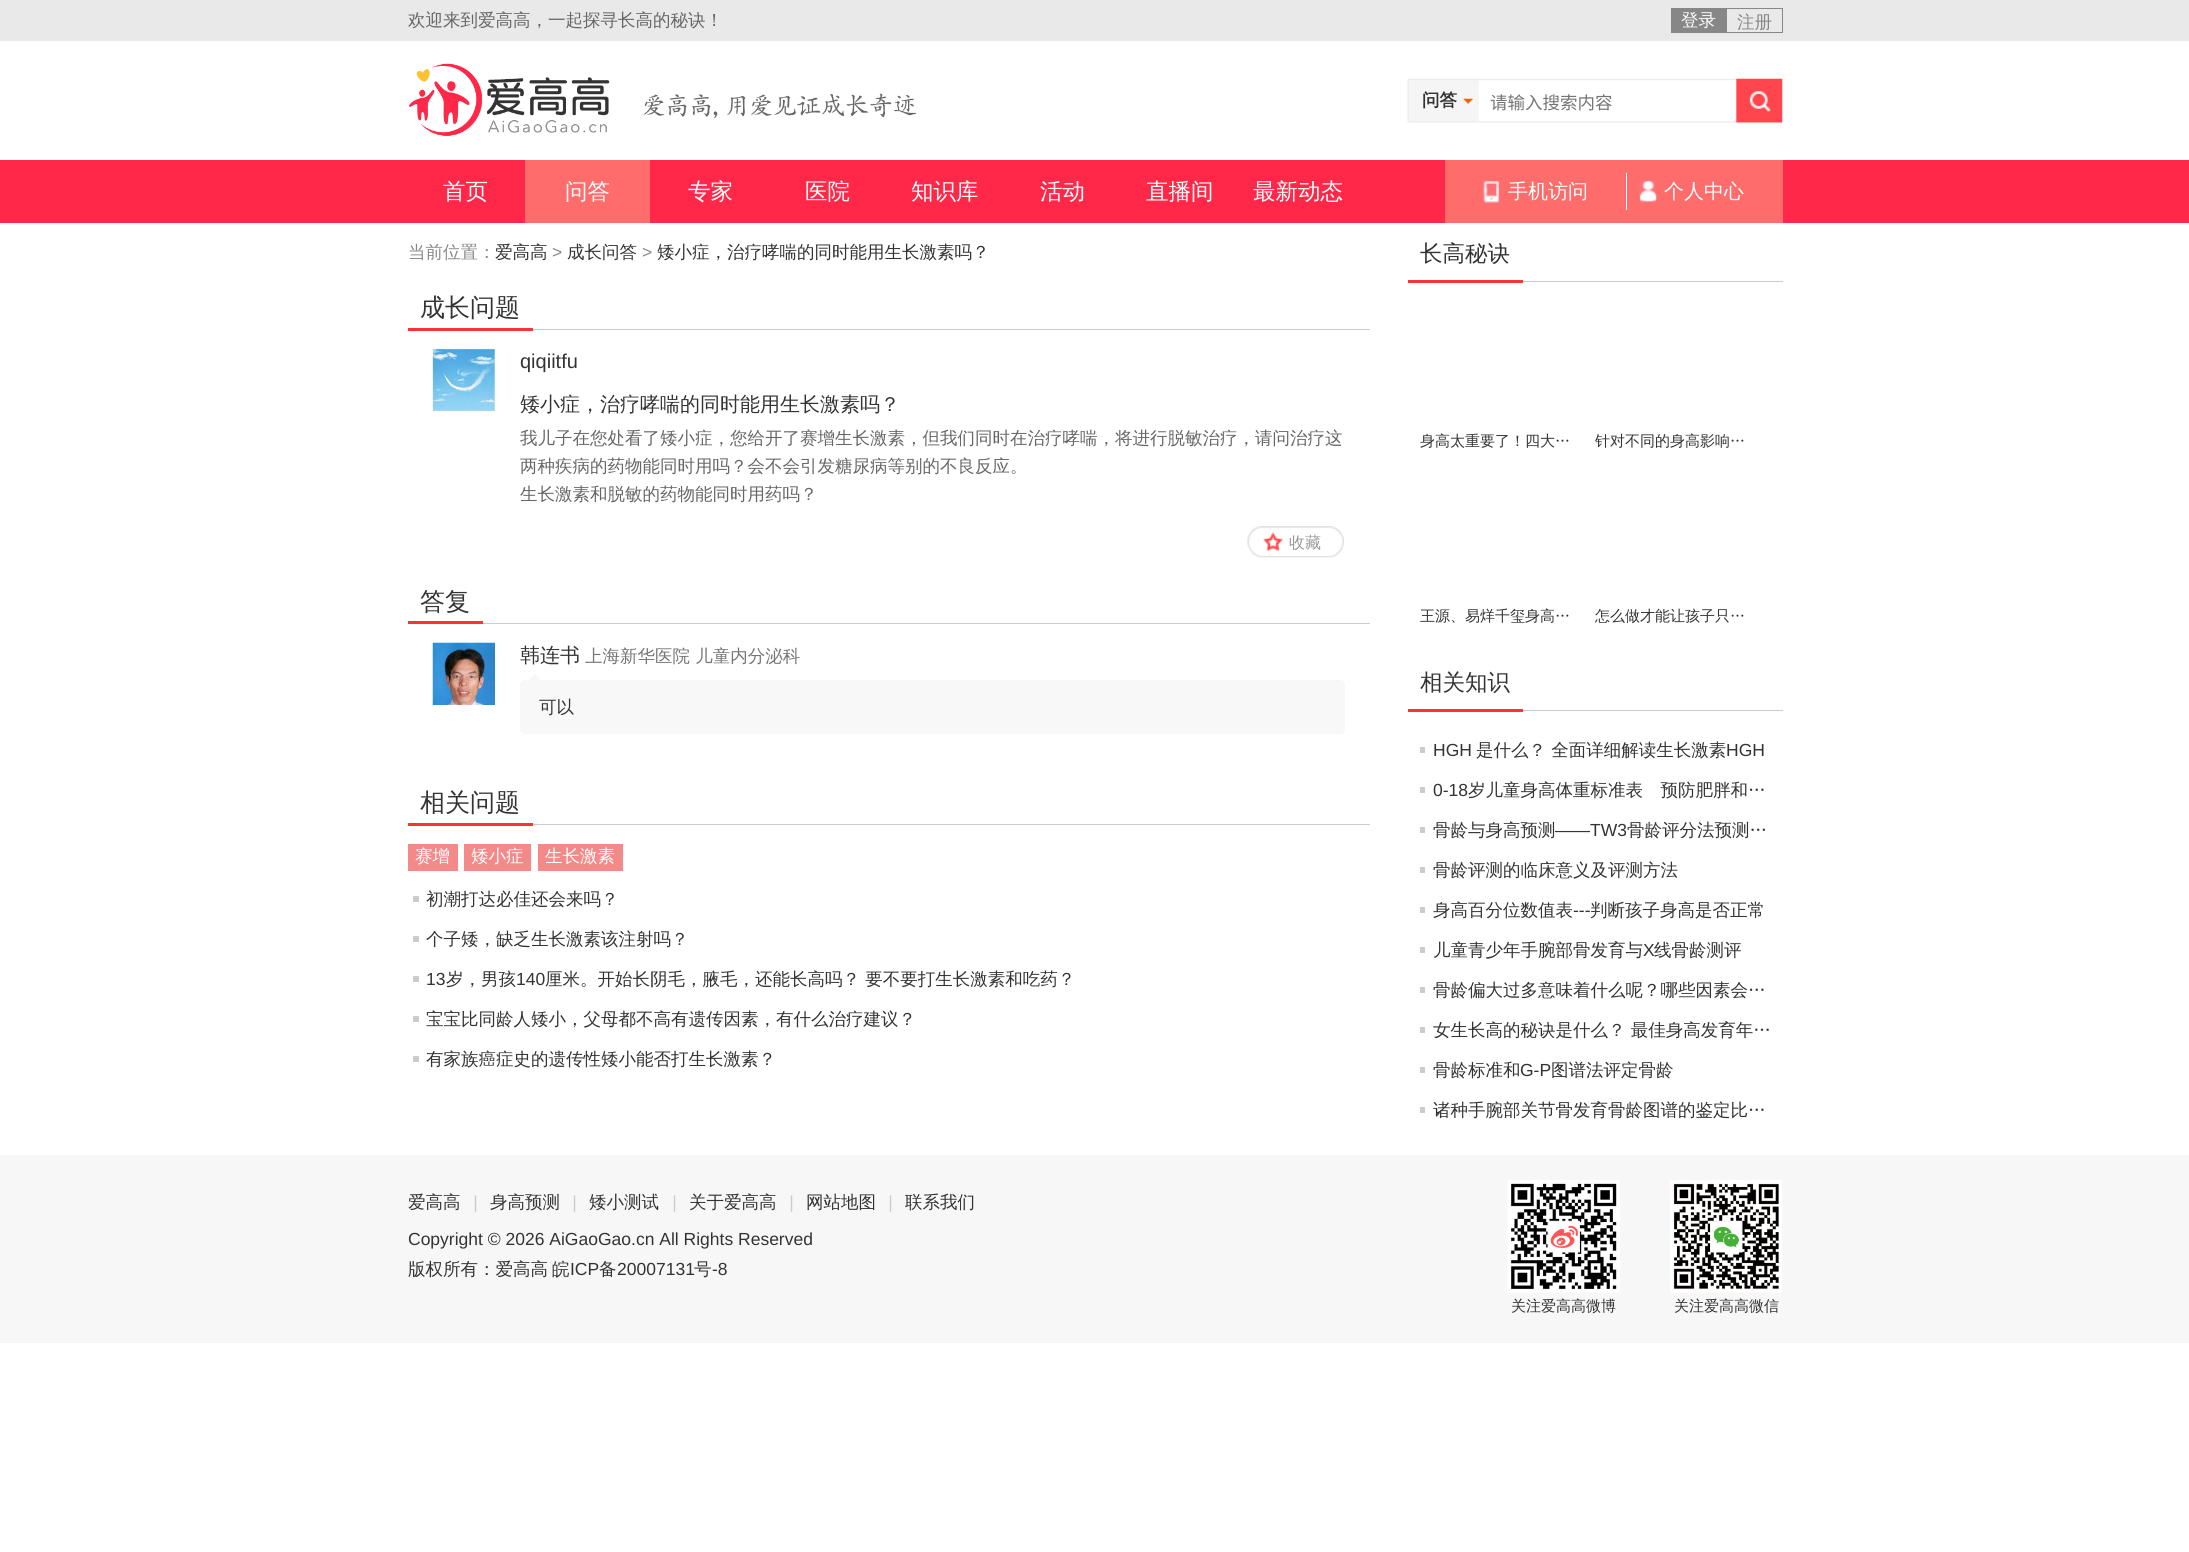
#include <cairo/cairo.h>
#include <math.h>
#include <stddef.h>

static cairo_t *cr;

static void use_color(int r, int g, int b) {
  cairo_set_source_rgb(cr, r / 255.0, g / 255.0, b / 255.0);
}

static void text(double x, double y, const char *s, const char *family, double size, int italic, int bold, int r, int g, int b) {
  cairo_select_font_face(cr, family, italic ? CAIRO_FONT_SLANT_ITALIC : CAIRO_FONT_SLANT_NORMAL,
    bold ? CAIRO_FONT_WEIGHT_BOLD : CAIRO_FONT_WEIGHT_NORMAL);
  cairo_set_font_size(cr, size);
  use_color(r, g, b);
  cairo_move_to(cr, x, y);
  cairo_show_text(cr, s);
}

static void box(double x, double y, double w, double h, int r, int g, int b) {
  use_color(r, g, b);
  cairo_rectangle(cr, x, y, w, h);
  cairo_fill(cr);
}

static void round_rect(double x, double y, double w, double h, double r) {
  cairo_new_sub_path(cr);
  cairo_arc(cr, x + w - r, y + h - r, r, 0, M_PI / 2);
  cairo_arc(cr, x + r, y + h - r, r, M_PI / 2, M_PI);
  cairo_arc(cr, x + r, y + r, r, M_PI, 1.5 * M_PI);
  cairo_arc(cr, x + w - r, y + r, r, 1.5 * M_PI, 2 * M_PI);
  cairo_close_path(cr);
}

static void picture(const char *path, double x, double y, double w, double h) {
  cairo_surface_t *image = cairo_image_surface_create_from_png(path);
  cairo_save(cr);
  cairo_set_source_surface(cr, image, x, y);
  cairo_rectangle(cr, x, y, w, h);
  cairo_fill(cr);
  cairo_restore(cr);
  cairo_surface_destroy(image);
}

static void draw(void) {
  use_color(255, 255, 255);
  cairo_paint(cr);
  box(0, 0, 2189, 41, 233, 233, 233);
  box(1671, 8, 55, 25, 135, 135, 135);
  cairo_rectangle(cr, 1726.5, 8.5, 56, 24);
  cairo_set_line_width(cr, 1);
  cairo_stroke(cr);
  picture("img_01.png", 409, 63, 201, 73);
  picture("img_02.png", 643, 93, 274, 25);
  picture("img_03.png", 1407, 78, 376, 45);
  picture("img_04.png", 1463, 98, 10, 6);
  box(0, 160, 2189, 63, 255, 40, 73);
  box(525, 160, 125, 63, 255, 108, 108);
  box(1445, 160, 338, 63, 255, 108, 108);
  picture("img_05.png", 1482, 180, 18, 24);
  box(1626, 173, 1, 37, 255, 255, 255);
  picture("img_06.png", 1639, 180, 18, 24);
  box(533, 329, 837, 1, 204, 204, 204);
  box(408, 328, 125, 3, 255, 51, 51);
  picture("img_07.png", 432, 348, 63, 64);
  picture("img_08.png", 1247, 526, 97, 32);
  picture("img_09.png", 1263, 532, 20, 20);
  box(483, 623, 887, 1, 204, 204, 204);
  box(408, 621, 75, 3, 255, 51, 51);
  picture("img_10.png", 432, 642, 63, 63);
  use_color(248, 248, 248);
  round_rect(520, 680, 825, 54, 5);
  cairo_fill(cr);
  picture("img_11.png", 530, 674, 10, 6);
  box(533, 824, 837, 1, 204, 204, 204);
  box(408, 823, 125, 3, 255, 51, 51);
  box(408, 844, 50, 27, 243, 137, 137);
  box(464, 844, 67, 27, 243, 137, 137);
  box(538, 844, 85, 27, 243, 137, 137);
  box(413, 896, 6, 6, 204, 204, 204);
  box(413, 936, 6, 6, 204, 204, 204);
  box(413, 976, 6, 6, 204, 204, 204);
  box(413, 1016, 6, 6, 204, 204, 204);
  box(413, 1056, 6, 6, 204, 204, 204);
  box(1523, 281, 260, 1, 204, 204, 204);
  box(1408, 280, 115, 3, 255, 51, 51);
  box(1523, 710, 260, 1, 204, 204, 204);
  box(1408, 709, 115, 3, 255, 51, 51);
  box(1420, 747, 5, 6, 204, 204, 204);
  box(1420, 787, 5, 6, 204, 204, 204);
  box(1420, 827, 5, 6, 204, 204, 204);
  box(1420, 867, 5, 6, 204, 204, 204);
  box(1420, 907, 5, 6, 204, 204, 204);
  box(1420, 947, 5, 6, 204, 204, 204);
  box(1420, 987, 5, 6, 204, 204, 204);
  box(1420, 1027, 5, 6, 204, 204, 204);
  box(1420, 1067, 5, 6, 204, 204, 204);
  box(1420, 1107, 5, 6, 204, 204, 204);
  box(0, 1155, 2189, 188, 247, 247, 247);
  picture("img_12.png", 1507, 1180, 113, 113);
  picture("img_13.png", 1670, 1180, 112, 113);
  text(408, 26, "欢迎来到爱高高，一起探寻长高的秘诀！", "WenQuanYi Zen Hei Medium", 17.5, 0, 0, 102, 102, 102);
  text(1681, 26, "登录", "WenQuanYi Zen Hei Medium", 17.5, 0, 0, 255, 255, 255);
  text(1737, 28, "注册", "WenQuanYi Zen Hei Medium", 17.5, 0, 0, 135, 135, 135);
  text(1422, 106, "问答", "WenQuanYi Zen Hei", 17.5, 0, 1, 51, 51, 51);
  text(1490, 109, "请输入搜索内容", "Noto Sans CJK SC", 17.5, 0, 0, 117, 117, 117);
  text(443, 199, "首页", "WenQuanYi Zen Hei Medium", 22.5, 0, 0, 255, 255, 255);
  text(565, 199, "问答", "WenQuanYi Zen Hei Medium", 22.5, 0, 0, 255, 255, 255);
  text(688, 199, "专家", "WenQuanYi Zen Hei Medium", 22.5, 0, 0, 255, 255, 255);
  text(805, 199, "医院", "WenQuanYi Zen Hei Medium", 22.5, 0, 0, 255, 255, 255);
  text(911, 199, "知识库", "WenQuanYi Zen Hei Medium", 22.5, 0, 0, 255, 255, 255);
  text(1040, 199, "活动", "WenQuanYi Zen Hei Medium", 22.5, 0, 0, 255, 255, 255);
  text(1146, 199, "直播间", "WenQuanYi Zen Hei Medium", 22.5, 0, 0, 255, 255, 255);
  text(1253, 199, "最新动态", "WenQuanYi Zen Hei Medium", 22.5, 0, 0, 255, 255, 255);
  text(1508, 198, "手机访问", "WenQuanYi Zen Hei Medium", 20, 0, 0, 255, 255, 255);
  text(1664, 198, "个人中心", "WenQuanYi Zen Hei Medium", 20, 0, 0, 255, 255, 255);
  text(408, 258, "当前位置：", "WenQuanYi Zen Hei Medium", 17.5, 0, 0, 135, 135, 135);
  text(495, 258, "爱高高", "WenQuanYi Zen Hei Medium", 17.5, 0, 0, 51, 51, 51);
  text(552, 258, ">", "Liberation Sans", 17.5, 0, 0, 135, 135, 135);
  text(567, 258, "成长问答", "WenQuanYi Zen Hei Medium", 17.5, 0, 0, 51, 51, 51);
  text(642, 258, ">", "Liberation Sans", 17.5, 0, 0, 135, 135, 135);
  text(657, 258, "矮小症，治疗哮喘的同时能用生长激素吗？", "WenQuanYi Zen Hei Medium", 17.5, 0, 0, 51, 51, 51);
  text(420, 316, "成长问题", "WenQuanYi Zen Hei Medium", 25, 0, 0, 51, 51, 51);
  text(520, 368, "qiqiitfu", "Liberation Sans", 20, 0, 0, 51, 51, 51);
  text(520, 411, "矮小症，治疗哮喘的同时能用生长激素吗？", "WenQuanYi Zen Hei Medium", 20, 0, 0, 51, 51, 51);
  text(520, 444, "我儿子在您处看了矮小症，您给开了赛增生长激素，但我们同时在治疗哮喘，将进行脱敏治疗，请问治疗这", "WenQuanYi Zen Hei Medium", 17.5, 0, 0, 102, 102, 102);
  text(520, 472, "两种疾病的药物能同时用吗？会不会引发糖尿病等别的不良反应。", "WenQuanYi Zen Hei Medium", 17.5, 0, 0, 102, 102, 102);
  text(520, 500, "生长激素和脱敏的药物能同时用药吗？", "WenQuanYi Zen Hei Medium", 17.5, 0, 0, 102, 102, 102);
  text(1289, 548, "收藏", "WenQuanYi Zen Hei Medium", 16, 0, 0, 153, 153, 153);
  text(420, 610, "答复", "WenQuanYi Zen Hei Medium", 25, 0, 0, 51, 51, 51);
  text(520, 662, "韩连书", "WenQuanYi Zen Hei Medium", 20, 0, 0, 51, 51, 51);
  text(585, 662, "上海新华医院 儿童内分泌科", "WenQuanYi Zen Hei Medium", 17.5, 0, 0, 117, 117, 117);
  text(539, 713, "可以", "WenQuanYi Zen Hei Medium", 17.5, 0, 0, 51, 51, 51);
  text(420, 811, "相关问题", "WenQuanYi Zen Hei Medium", 25, 0, 0, 51, 51, 51);
  text(415, 862, "赛增", "WenQuanYi Zen Hei Medium", 17.5, 0, 0, 255, 255, 255);
  text(471, 862, "矮小症", "WenQuanYi Zen Hei Medium", 17.5, 0, 0, 255, 255, 255);
  text(545, 862, "生长激素", "WenQuanYi Zen Hei Medium", 17.5, 0, 0, 255, 255, 255);
  text(426, 905, "初潮打达必佳还会来吗？", "WenQuanYi Zen Hei Medium", 17.5, 0, 0, 51, 51, 51);
  text(426, 945, "个子矮，缺乏生长激素该注射吗？", "WenQuanYi Zen Hei Medium", 17.5, 0, 0, 51, 51, 51);
  text(426, 985, "13", "Liberation Sans", 17.5, 0, 0, 51, 51, 51);
  text(446, 985, "岁，男孩", "WenQuanYi Zen Hei Medium", 17.5, 0, 0, 51, 51, 51);
  text(516, 985, "140", "Liberation Sans", 17.5, 0, 0, 51, 51, 51);
  text(545, 985, "厘米。开始长阴毛，腋毛，还能长高吗？ 要不要打生长激素和吃药？", "WenQuanYi Zen Hei Medium", 17.5, 0, 0, 51, 51, 51);
  text(426, 1025, "宝宝比同龄人矮小，父母都不高有遗传因素，有什么治疗建议？", "WenQuanYi Zen Hei Medium", 17.5, 0, 0, 51, 51, 51);
  text(426, 1065, "有家族癌症史的遗传性矮小能否打生长激素？", "WenQuanYi Zen Hei Medium", 17.5, 0, 0, 51, 51, 51);
  text(1420, 261, "长高秘诀", "WenQuanYi Zen Hei Medium", 22.5, 0, 0, 51, 51, 51);
  text(1420, 446, "身高太重要了！四大…", "WenQuanYi Zen Hei Medium", 15, 0, 0, 51, 51, 51);
  text(1595, 446, "针对不同的身高影响…", "WenQuanYi Zen Hei Medium", 15, 0, 0, 51, 51, 51);
  text(1420, 621, "王源、易烊千玺身高…", "WenQuanYi Zen Hei Medium", 15, 0, 0, 51, 51, 51);
  text(1595, 621, "怎么做才能让孩子只…", "WenQuanYi Zen Hei Medium", 15, 0, 0, 51, 51, 51);
  text(1420, 690, "相关知识", "WenQuanYi Zen Hei Medium", 22.5, 0, 0, 51, 51, 51);
  text(1433, 756, "HGH", "Liberation Sans", 17.5, 0, 0, 51, 51, 51);
  text(1476, 756, "是什么？ 全面详细解读生长激素", "WenQuanYi Zen Hei Medium", 17.5, 0, 0, 51, 51, 51);
  text(1726, 756, "HGH", "Liberation Sans", 17.5, 0, 0, 51, 51, 51);
  text(1433, 796, "0-18", "Liberation Sans", 17.5, 0, 0, 51, 51, 51);
  text(1468, 796, "岁儿童身高体重标准表　预防肥胖和…", "WenQuanYi Zen Hei Medium", 17.5, 0, 0, 51, 51, 51);
  text(1433, 836, "骨龄与身高预测", "WenQuanYi Zen Hei Medium", 17.5, 0, 0, 51, 51, 51);
  text(1555, 836, "——TW3", "Liberation Sans", 17.5, 0, 0, 51, 51, 51);
  text(1627, 836, "骨龄评分法预测…", "WenQuanYi Zen Hei Medium", 17.5, 0, 0, 51, 51, 51);
  text(1433, 876, "骨龄评测的临床意义及评测方法", "WenQuanYi Zen Hei Medium", 17.5, 0, 0, 51, 51, 51);
  text(1433, 916, "身高百分位数值表", "WenQuanYi Zen Hei Medium", 17.5, 0, 0, 51, 51, 51);
  text(1573, 916, "---", "Liberation Sans", 17.5, 0, 0, 51, 51, 51);
  text(1590, 916, "判断孩子身高是否正常", "WenQuanYi Zen Hei Medium", 17.5, 0, 0, 51, 51, 51);
  text(1433, 956, "儿童青少年手腕部骨发育与", "WenQuanYi Zen Hei Medium", 17.5, 0, 0, 51, 51, 51);
  text(1643, 956, "X", "Liberation Sans", 17.5, 0, 0, 51, 51, 51);
  text(1654, 956, "线骨龄测评", "WenQuanYi Zen Hei Medium", 17.5, 0, 0, 51, 51, 51);
  text(1433, 996, "骨龄偏大过多意味着什么呢？哪些因素会…", "WenQuanYi Zen Hei Medium", 17.5, 0, 0, 51, 51, 51);
  text(1433, 1036, "女生长高的秘诀是什么？ 最佳身高发育年…", "WenQuanYi Zen Hei Medium", 17.5, 0, 0, 51, 51, 51);
  text(1433, 1076, "骨龄标准和", "WenQuanYi Zen Hei Medium", 17.5, 0, 0, 51, 51, 51);
  text(1520, 1076, "G-P", "Liberation Sans", 17.5, 0, 0, 51, 51, 51);
  text(1551, 1076, "图谱法评定骨龄", "WenQuanYi Zen Hei Medium", 17.5, 0, 0, 51, 51, 51);
  text(1433, 1116, "诸种手腕部关节骨发育骨龄图谱的鉴定比…", "WenQuanYi Zen Hei Medium", 17.5, 0, 0, 51, 51, 51);
  text(408, 1208, "爱高高", "WenQuanYi Zen Hei Medium", 17.5, 0, 0, 51, 51, 51);
  text(473, 1208, "|", "Liberation Sans", 17.5, 1, 0, 204, 204, 204);
  text(490, 1208, "身高预测", "WenQuanYi Zen Hei Medium", 17.5, 0, 0, 51, 51, 51);
  text(572, 1208, "|", "Liberation Sans", 17.5, 1, 0, 204, 204, 204);
  text(589, 1208, "矮小测试", "WenQuanYi Zen Hei Medium", 17.5, 0, 0, 51, 51, 51);
  text(672, 1208, "|", "Liberation Sans", 17.5, 1, 0, 204, 204, 204);
  text(689, 1208, "关于爱高高", "WenQuanYi Zen Hei Medium", 17.5, 0, 0, 51, 51, 51);
  text(789, 1208, "|", "Liberation Sans", 17.5, 1, 0, 204, 204, 204);
  text(806, 1208, "网站地图", "WenQuanYi Zen Hei Medium", 17.5, 0, 0, 51, 51, 51);
  text(888, 1208, "|", "Liberation Sans", 17.5, 1, 0, 204, 204, 204);
  text(905, 1208, "联系我们", "WenQuanYi Zen Hei Medium", 17.5, 0, 0, 51, 51, 51);
  text(408, 1245, "Copyright © 2026 AiGaoGao.cn All Rights Reserved", "Liberation Sans", 17.5, 0, 0, 51, 51, 51);
  text(408, 1275, "版权所有：爱高高", "WenQuanYi Zen Hei Medium", 17.5, 0, 0, 51, 51, 51);
  text(552, 1275, "皖", "WenQuanYi Zen Hei Medium", 17.5, 0, 0, 51, 51, 51);
  text(570, 1275, "ICP", "Liberation Sans", 17.5, 0, 0, 51, 51, 51);
  text(599, 1275, "备", "WenQuanYi Zen Hei Medium", 17.5, 0, 0, 51, 51, 51);
  text(617, 1275, "20007131", "Liberation Sans", 17.5, 0, 0, 51, 51, 51);
  text(694, 1275, "号", "WenQuanYi Zen Hei Medium", 17.5, 0, 0, 51, 51, 51);
  text(712, 1275, "-8", "Liberation Sans", 17.5, 0, 0, 51, 51, 51);
  text(1511, 1311, "关注爱高高微博", "WenQuanYi Zen Hei Medium", 15, 0, 0, 51, 51, 51);
  text(1674, 1311, "关注爱高高微信", "WenQuanYi Zen Hei Medium", 15, 0, 0, 51, 51, 51);
}

int main(void) {
  cairo_surface_t *surface = cairo_image_surface_create(CAIRO_FORMAT_RGB24, 2189, 1552);
  cr = cairo_create(surface);
  cairo_font_options_t *options = cairo_font_options_create();
  cairo_font_options_set_hint_metrics(options, CAIRO_HINT_METRICS_OFF);
  cairo_font_options_set_hint_style(options, CAIRO_HINT_STYLE_NONE);
  cairo_set_font_options(cr, options);
  cairo_set_miter_limit(cr, 4);
  draw();
  cairo_surface_write_to_png(surface, "out.png");
  cairo_font_options_destroy(options);
  cairo_destroy(cr);
  cairo_surface_destroy(surface);
  return 0;
}
